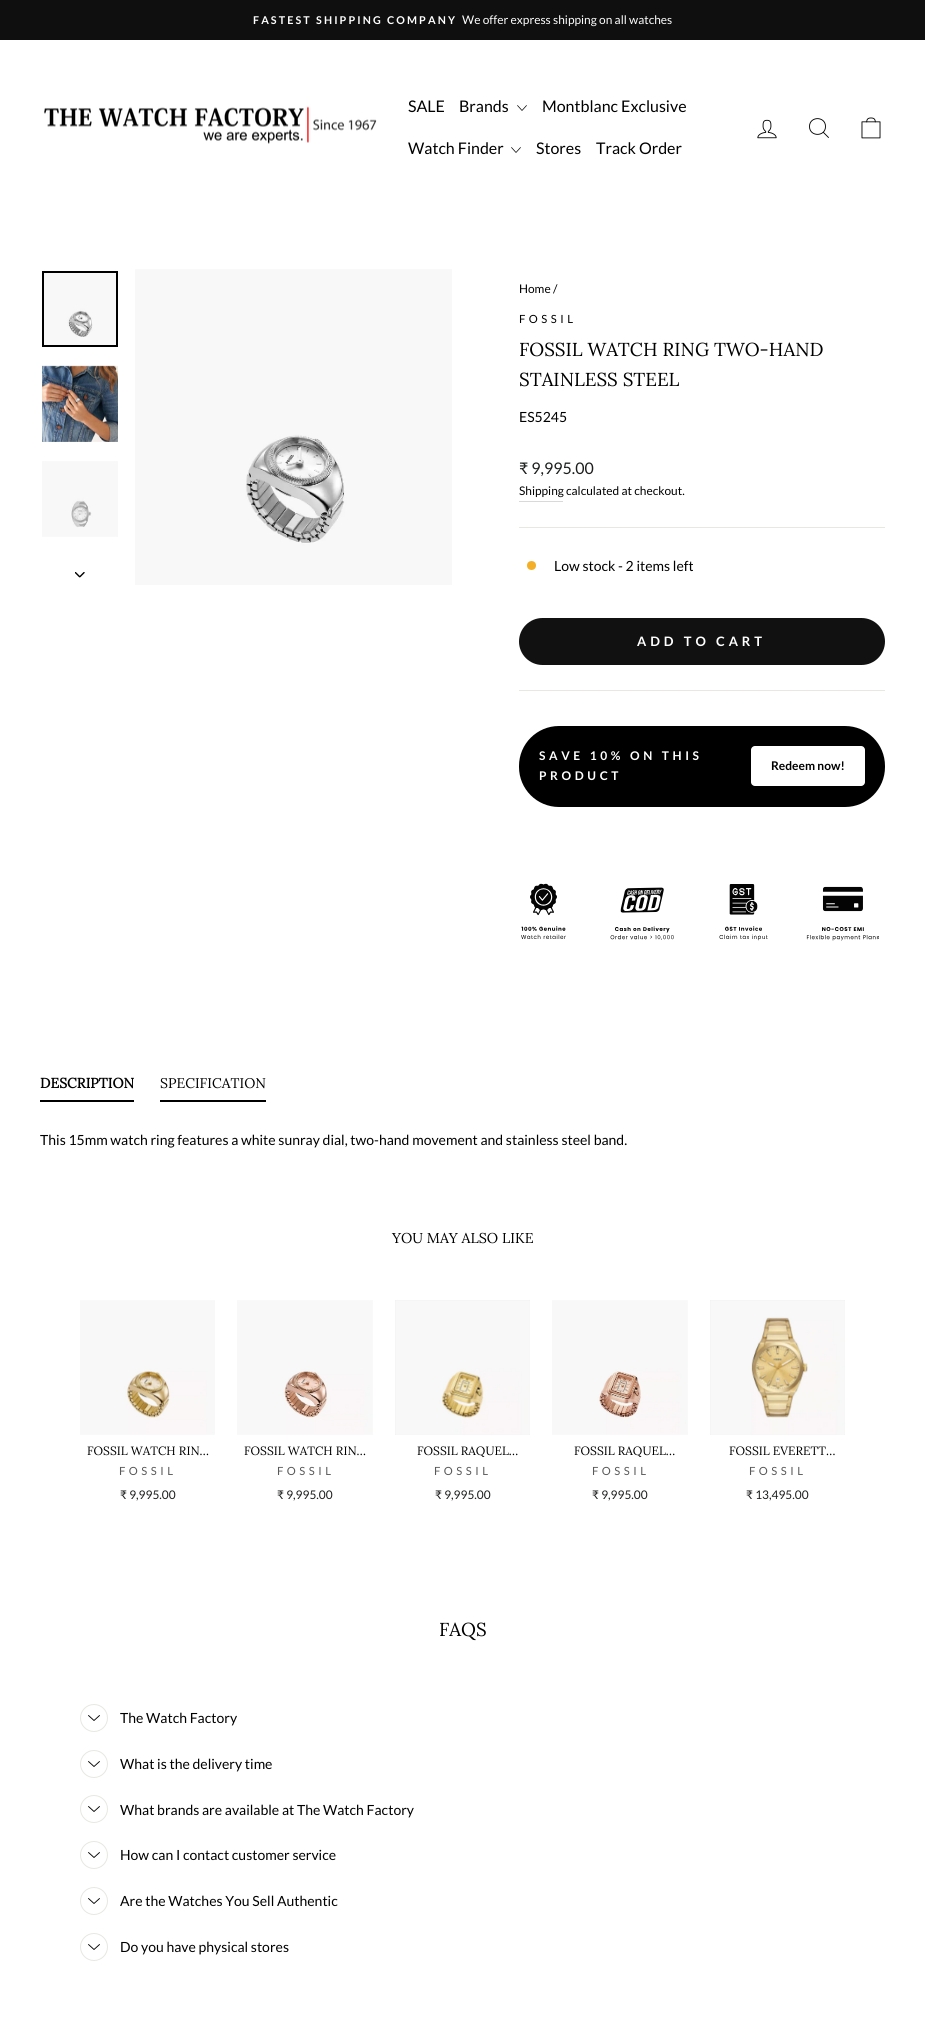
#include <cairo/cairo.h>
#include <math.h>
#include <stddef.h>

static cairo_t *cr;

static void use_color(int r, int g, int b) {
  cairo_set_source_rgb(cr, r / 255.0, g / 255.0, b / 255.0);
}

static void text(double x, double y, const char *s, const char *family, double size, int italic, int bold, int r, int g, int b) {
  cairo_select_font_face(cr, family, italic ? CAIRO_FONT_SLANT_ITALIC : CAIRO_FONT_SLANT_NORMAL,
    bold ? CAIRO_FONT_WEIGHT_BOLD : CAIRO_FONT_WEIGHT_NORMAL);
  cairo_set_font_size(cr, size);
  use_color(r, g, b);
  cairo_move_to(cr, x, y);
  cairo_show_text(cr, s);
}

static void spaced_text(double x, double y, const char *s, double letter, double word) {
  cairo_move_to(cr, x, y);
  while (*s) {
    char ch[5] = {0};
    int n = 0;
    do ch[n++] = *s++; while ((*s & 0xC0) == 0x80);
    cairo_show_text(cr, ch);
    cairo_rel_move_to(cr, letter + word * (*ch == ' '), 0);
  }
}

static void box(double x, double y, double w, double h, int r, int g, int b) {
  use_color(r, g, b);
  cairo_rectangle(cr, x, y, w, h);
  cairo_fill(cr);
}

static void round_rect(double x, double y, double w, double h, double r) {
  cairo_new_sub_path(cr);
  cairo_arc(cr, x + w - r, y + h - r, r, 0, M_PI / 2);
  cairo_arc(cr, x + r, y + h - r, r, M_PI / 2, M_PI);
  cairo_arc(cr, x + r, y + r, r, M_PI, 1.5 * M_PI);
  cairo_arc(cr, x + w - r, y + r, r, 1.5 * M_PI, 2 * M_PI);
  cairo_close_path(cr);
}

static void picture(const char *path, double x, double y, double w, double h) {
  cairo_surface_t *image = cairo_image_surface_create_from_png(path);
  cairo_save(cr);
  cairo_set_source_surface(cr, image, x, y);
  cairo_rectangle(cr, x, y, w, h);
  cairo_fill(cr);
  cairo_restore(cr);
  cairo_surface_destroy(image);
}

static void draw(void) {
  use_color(255, 255, 255);
  cairo_paint(cr);
  box(0, 0, 925, 40, 15, 15, 15);
  picture("img_01.png", 44, 106, 333, 38);
  cairo_new_path(cr);
  cairo_move_to(cr, 517.5, 105.5);
  cairo_line_to(cr, 522, 110.5);
  cairo_line_to(cr, 526.5, 105.5);
  use_color(0, 0, 0);
  cairo_set_line_width(cr, 0.7);
  cairo_set_line_cap(cr, CAIRO_LINE_CAP_ROUND);
  cairo_set_line_join(cr, CAIRO_LINE_JOIN_ROUND);
  cairo_stroke(cr);
  cairo_new_path(cr);
  cairo_move_to(cr, 511.5, 147.5);
  cairo_line_to(cr, 516, 152.5);
  cairo_line_to(cr, 520.5, 147.5);
  cairo_stroke(cr);
  picture("img_02.png", 757, 119, 20, 20);
  cairo_new_path(cr);
  cairo_move_to(cr, 825.5, 126.5);
  cairo_curve_to(cr, 825.5, 137, 809.5, 137, 809.5, 126.5);
  cairo_curve_to(cr, 809.5, 116, 825.5, 116, 825.5, 126.5);
  cairo_close_path(cr);
  cairo_move_to(cr, 828.5, 137.5);
  cairo_line_to(cr, 823.5, 132.5);
  cairo_set_line_width(cr, 0.9);
  cairo_stroke(cr);
  picture("img_03.png", 861, 117, 20, 22);
  picture("img_04.png", 44, 273, 72, 72);
  cairo_rectangle(cr, 43, 272, 74, 74);
  cairo_set_line_width(cr, 2);
  cairo_set_line_cap(cr, CAIRO_LINE_CAP_BUTT);
  cairo_set_line_join(cr, CAIRO_LINE_JOIN_MITER);
  cairo_stroke(cr);
  picture("img_05.png", 42, 365, 76, 77);
  picture("img_06.png", 42, 461, 76, 76);
  picture("img_07.png", 75, 572, 10, 6);
  picture("img_08.png", 135, 269, 317, 316);
  box(519, 501, 44, 1, 217, 217, 217);
  box(519, 527, 366, 1, 232, 232, 225);
  use_color(244, 175, 41);
  cairo_arc(cr, 531.5, 565.5, 4.5, 0, 2 * M_PI);
  cairo_fill(cr);
  use_color(17, 17, 17);
  round_rect(519, 618, 366, 47, 23.5);
  cairo_fill(cr);
  box(519, 690, 366, 1, 232, 232, 225);
  use_color(0, 0, 0);
  round_rect(519, 726, 366, 81, 40);
  cairo_fill(cr);
  use_color(255, 255, 255);
  round_rect(751, 746, 114, 40, 4);
  cairo_fill(cr);
  picture("img_09.png", 519, 852, 366, 120);
  box(40, 1100, 94, 2, 0, 0, 0);
  box(160, 1100, 106, 2, 0, 0, 0);
  picture("img_10.png", 80, 1300, 135, 135);
  picture("img_11.png", 237, 1300, 136, 135);
  box(395, 1300, 135, 135, 229, 229, 229);
  picture("img_12.png", 395, 1300, 135, 135);
  picture("img_13.png", 552, 1300, 136, 135);
  box(710, 1300, 135, 135, 229, 229, 229);
  picture("img_14.png", 710, 1300, 135, 135);
  cairo_arc(cr, 94, 1718, 13.5, 0, 2 * M_PI);
  use_color(232, 232, 225);
  cairo_set_line_width(cr, 1);
  cairo_stroke(cr);
  cairo_new_path(cr);
  cairo_move_to(cr, 88.5, 1715.5);
  cairo_line_to(cr, 94, 1720.5);
  cairo_line_to(cr, 99.5, 1715.5);
  use_color(0, 0, 0);
  cairo_set_line_width(cr, 0.9);
  cairo_set_line_cap(cr, CAIRO_LINE_CAP_ROUND);
  cairo_set_line_join(cr, CAIRO_LINE_JOIN_ROUND);
  cairo_stroke(cr);
  cairo_arc(cr, 94, 1764, 13.5, 0, 2 * M_PI);
  use_color(232, 232, 225);
  cairo_set_line_width(cr, 1);
  cairo_set_line_cap(cr, CAIRO_LINE_CAP_BUTT);
  cairo_set_line_join(cr, CAIRO_LINE_JOIN_MITER);
  cairo_stroke(cr);
  cairo_new_path(cr);
  cairo_move_to(cr, 88.5, 1761.5);
  cairo_line_to(cr, 94, 1766.5);
  cairo_line_to(cr, 99.5, 1761.5);
  use_color(0, 0, 0);
  cairo_set_line_width(cr, 0.9);
  cairo_set_line_cap(cr, CAIRO_LINE_CAP_ROUND);
  cairo_set_line_join(cr, CAIRO_LINE_JOIN_ROUND);
  cairo_stroke(cr);
  cairo_arc(cr, 94, 1809, 13.5, 0, 2 * M_PI);
  use_color(232, 232, 225);
  cairo_set_line_width(cr, 1);
  cairo_set_line_cap(cr, CAIRO_LINE_CAP_BUTT);
  cairo_set_line_join(cr, CAIRO_LINE_JOIN_MITER);
  cairo_stroke(cr);
  cairo_new_path(cr);
  cairo_move_to(cr, 88.5, 1806.5);
  cairo_line_to(cr, 94, 1811.5);
  cairo_line_to(cr, 99.5, 1806.5);
  use_color(0, 0, 0);
  cairo_set_line_width(cr, 0.9);
  cairo_set_line_cap(cr, CAIRO_LINE_CAP_ROUND);
  cairo_set_line_join(cr, CAIRO_LINE_JOIN_ROUND);
  cairo_stroke(cr);
  cairo_arc(cr, 94, 1855, 13.5, 0, 2 * M_PI);
  use_color(232, 232, 225);
  cairo_set_line_width(cr, 1);
  cairo_set_line_cap(cr, CAIRO_LINE_CAP_BUTT);
  cairo_set_line_join(cr, CAIRO_LINE_JOIN_MITER);
  cairo_stroke(cr);
  cairo_new_path(cr);
  cairo_move_to(cr, 88.5, 1852.5);
  cairo_line_to(cr, 94, 1857.5);
  cairo_line_to(cr, 99.5, 1852.5);
  use_color(0, 0, 0);
  cairo_set_line_width(cr, 0.9);
  cairo_set_line_cap(cr, CAIRO_LINE_CAP_ROUND);
  cairo_set_line_join(cr, CAIRO_LINE_JOIN_ROUND);
  cairo_stroke(cr);
  cairo_arc(cr, 94, 1901, 13.5, 0, 2 * M_PI);
  use_color(232, 232, 225);
  cairo_set_line_width(cr, 1);
  cairo_set_line_cap(cr, CAIRO_LINE_CAP_BUTT);
  cairo_set_line_join(cr, CAIRO_LINE_JOIN_MITER);
  cairo_stroke(cr);
  cairo_new_path(cr);
  cairo_move_to(cr, 88.5, 1898.5);
  cairo_line_to(cr, 94, 1903.5);
  cairo_line_to(cr, 99.5, 1898.5);
  use_color(0, 0, 0);
  cairo_set_line_width(cr, 0.9);
  cairo_set_line_cap(cr, CAIRO_LINE_CAP_ROUND);
  cairo_set_line_join(cr, CAIRO_LINE_JOIN_ROUND);
  cairo_stroke(cr);
  cairo_arc(cr, 94, 1947, 13.5, 0, 2 * M_PI);
  use_color(232, 232, 225);
  cairo_set_line_width(cr, 1);
  cairo_set_line_cap(cr, CAIRO_LINE_CAP_BUTT);
  cairo_set_line_join(cr, CAIRO_LINE_JOIN_MITER);
  cairo_stroke(cr);
  cairo_new_path(cr);
  cairo_move_to(cr, 88.5, 1944.5);
  cairo_line_to(cr, 94, 1949.5);
  cairo_line_to(cr, 99.5, 1944.5);
  use_color(0, 0, 0);
  cairo_set_line_width(cr, 0.9);
  cairo_set_line_cap(cr, CAIRO_LINE_CAP_ROUND);
  cairo_set_line_join(cr, CAIRO_LINE_JOIN_ROUND);
  cairo_stroke(cr);
  cairo_select_font_face(cr, "Lato", CAIRO_FONT_SLANT_NORMAL, CAIRO_FONT_WEIGHT_BOLD);
  cairo_set_font_size(cr, 10.75);
  use_color(255, 255, 255);
  spaced_text(253, 24, "FASTEST SHIPPING COMPANY", 2.1, 0);
  text(462, 24, "We offer express shipping on all watches", "Lato", 11.9, 0, 0, 255, 255, 255);
  text(408, 112, "SALE", "Lato", 16, 0, 0, 0, 0, 0);
  text(459, 112, "Brands", "Lato", 16, 0, 0, 0, 0, 0);
  text(542, 112, "Montblanc Exclusive", "Lato", 16, 0, 0, 0, 0, 0);
  text(408, 154, "Watch Finder", "Lato", 16, 0, 0, 0, 0, 0);
  text(536, 154, "Stores", "Lato", 16, 0, 0, 0, 0, 0);
  text(596, 154, "Track Order", "Lato", 16, 0, 0, 0, 0, 0);
  text(519, 293, "Home /", "Lato", 11.9, 0, 0, 0, 0, 0);
  cairo_set_font_size(cr, 11.25);
  spaced_text(519, 323, "FOSSIL", 3.5, 0);
  text(519, 356, "FOSSIL WATCH RING TWO-HAND", "Lora", 18.75, 0, 0, 0, 0, 0);
  text(519, 386, "STAINLESS STEEL", "Lora", 18.75, 0, 0, 0, 0, 0);
  text(519, 422, "ES5245", "Lato", 14, 0, 0, 0, 0, 0);
  text(519, 474, "₹ 9,995.00", "Lato", 16, 0, 0, 28, 29, 29);
  text(519, 495, "Shipping", "Lato", 11.9, 0, 0, 0, 0, 0);
  text(566, 495, "calculated at checkout.", "Lato", 11.9, 0, 0, 0, 0, 0);
  text(554, 571, "Low stock - 2 items left", "Lato", 14, 0, 0, 0, 0, 0);
  cairo_select_font_face(cr, "Lato", CAIRO_FONT_SLANT_NORMAL, CAIRO_FONT_WEIGHT_BOLD);
  cairo_set_font_size(cr, 13);
  use_color(255, 255, 255);
  spaced_text(637, 646, "ADD TO CART", 3.9, 0);
  cairo_set_font_size(cr, 12);
  spaced_text(539, 760, "SAVE 10% ON THIS", 3.6, 0);
  spaced_text(539, 780, "PRODUCT", 3.6, 0);
  text(771, 770, "Redeem now!", "Lato", 12, 0, 1, 0, 0, 0);
  text(40, 1088, "DESCRIPTION", "Lora", 14, 0, 1, 0, 0, 0);
  text(160, 1088, "SPECIFICATION", "Lora", 14, 0, 0, 0, 0, 0);
  text(40, 1145, "This 15mm watch ring features a white sunray dial, two-hand movement and stainless steel band.", "Lato", 14, 0, 0, 0, 0, 0);
  text(392, 1243, "YOU MAY ALSO LIKE", "Lora", 14.25, 0, 0, 0, 0, 0);
  text(87, 1455, "FOSSIL WATCH RIN…", "Lora", 12, 0, 0, 0, 0, 0);
  cairo_select_font_face(cr, "Lato", CAIRO_FONT_SLANT_NORMAL, CAIRO_FONT_WEIGHT_NORMAL);
  cairo_set_font_size(cr, 11.25);
  use_color(89, 89, 89);
  spaced_text(119, 1475, "FOSSIL", 3.5, 0);
  text(120, 1499, "₹ 9,995.00", "Lato", 11.9, 0, 0, 28, 29, 29);
  text(244, 1455, "FOSSIL WATCH RIN…", "Lora", 12, 0, 0, 0, 0, 0);
  cairo_select_font_face(cr, "Lato", CAIRO_FONT_SLANT_NORMAL, CAIRO_FONT_WEIGHT_NORMAL);
  cairo_set_font_size(cr, 11.25);
  use_color(89, 89, 89);
  spaced_text(277, 1475, "FOSSIL", 3.5, 0);
  text(277, 1499, "₹ 9,995.00", "Lato", 11.9, 0, 0, 28, 29, 29);
  cairo_save(cr);
  cairo_rectangle(cr, 395, 1445, 135, 12);
  cairo_clip(cr);
  text(417, 1455, "FOSSIL RAQUEL…", "Lora", 12, 0, 0, 0, 0, 0);
  cairo_restore(cr);
  cairo_set_font_size(cr, 11.25);
  use_color(89, 89, 89);
  spaced_text(434, 1475, "FOSSIL", 3.5, 0);
  text(435, 1499, "₹ 9,995.00", "Lato", 11.9, 0, 0, 28, 29, 29);
  cairo_save(cr);
  cairo_rectangle(cr, 552, 1445, 136, 12);
  cairo_clip(cr);
  text(574, 1455, "FOSSIL RAQUEL…", "Lora", 12, 0, 0, 0, 0, 0);
  cairo_restore(cr);
  cairo_set_font_size(cr, 11.25);
  use_color(89, 89, 89);
  spaced_text(592, 1475, "FOSSIL", 3.5, 0);
  text(592, 1499, "₹ 9,995.00", "Lato", 11.9, 0, 0, 28, 29, 29);
  text(729, 1455, "FOSSIL EVERETT…", "Lora", 12, 0, 0, 0, 0, 0);
  cairo_select_font_face(cr, "Lato", CAIRO_FONT_SLANT_NORMAL, CAIRO_FONT_WEIGHT_NORMAL);
  cairo_set_font_size(cr, 11.25);
  use_color(89, 89, 89);
  spaced_text(749, 1475, "FOSSIL", 3.5, 0);
  text(746, 1499, "₹ 13,495.00", "Lato", 11.9, 0, 0, 28, 29, 29);
  text(439, 1636, "FAQS", "Lora", 18.75, 0, 0, 0, 0, 0);
  text(120, 1723, "The Watch Factory", "Lato", 14, 0, 0, 0, 0, 0);
  text(120, 1769, "What is the delivery time", "Lato", 14, 0, 0, 0, 0, 0);
  text(120, 1815, "What brands are available at The Watch Factory", "Lato", 14, 0, 0, 0, 0, 0);
  text(120, 1860, "How can I contact customer service", "Lato", 14, 0, 0, 0, 0, 0);
  text(120, 1906, "Are the Watches You Sell Authentic", "Lato", 14, 0, 0, 0, 0, 0);
  text(120, 1952, "Do you have physical stores", "Lato", 14, 0, 0, 0, 0, 0);
}

int main(void) {
  cairo_surface_t *surface = cairo_image_surface_create(CAIRO_FORMAT_RGB24, 925, 2043);
  cr = cairo_create(surface);
  cairo_font_options_t *options = cairo_font_options_create();
  cairo_font_options_set_hint_metrics(options, CAIRO_HINT_METRICS_OFF);
  cairo_font_options_set_hint_style(options, CAIRO_HINT_STYLE_NONE);
  cairo_set_font_options(cr, options);
  cairo_set_miter_limit(cr, 4);
  draw();
  cairo_surface_write_to_png(surface, "out.png");
  cairo_font_options_destroy(options);
  cairo_destroy(cr);
  cairo_surface_destroy(surface);
  return 0;
}
